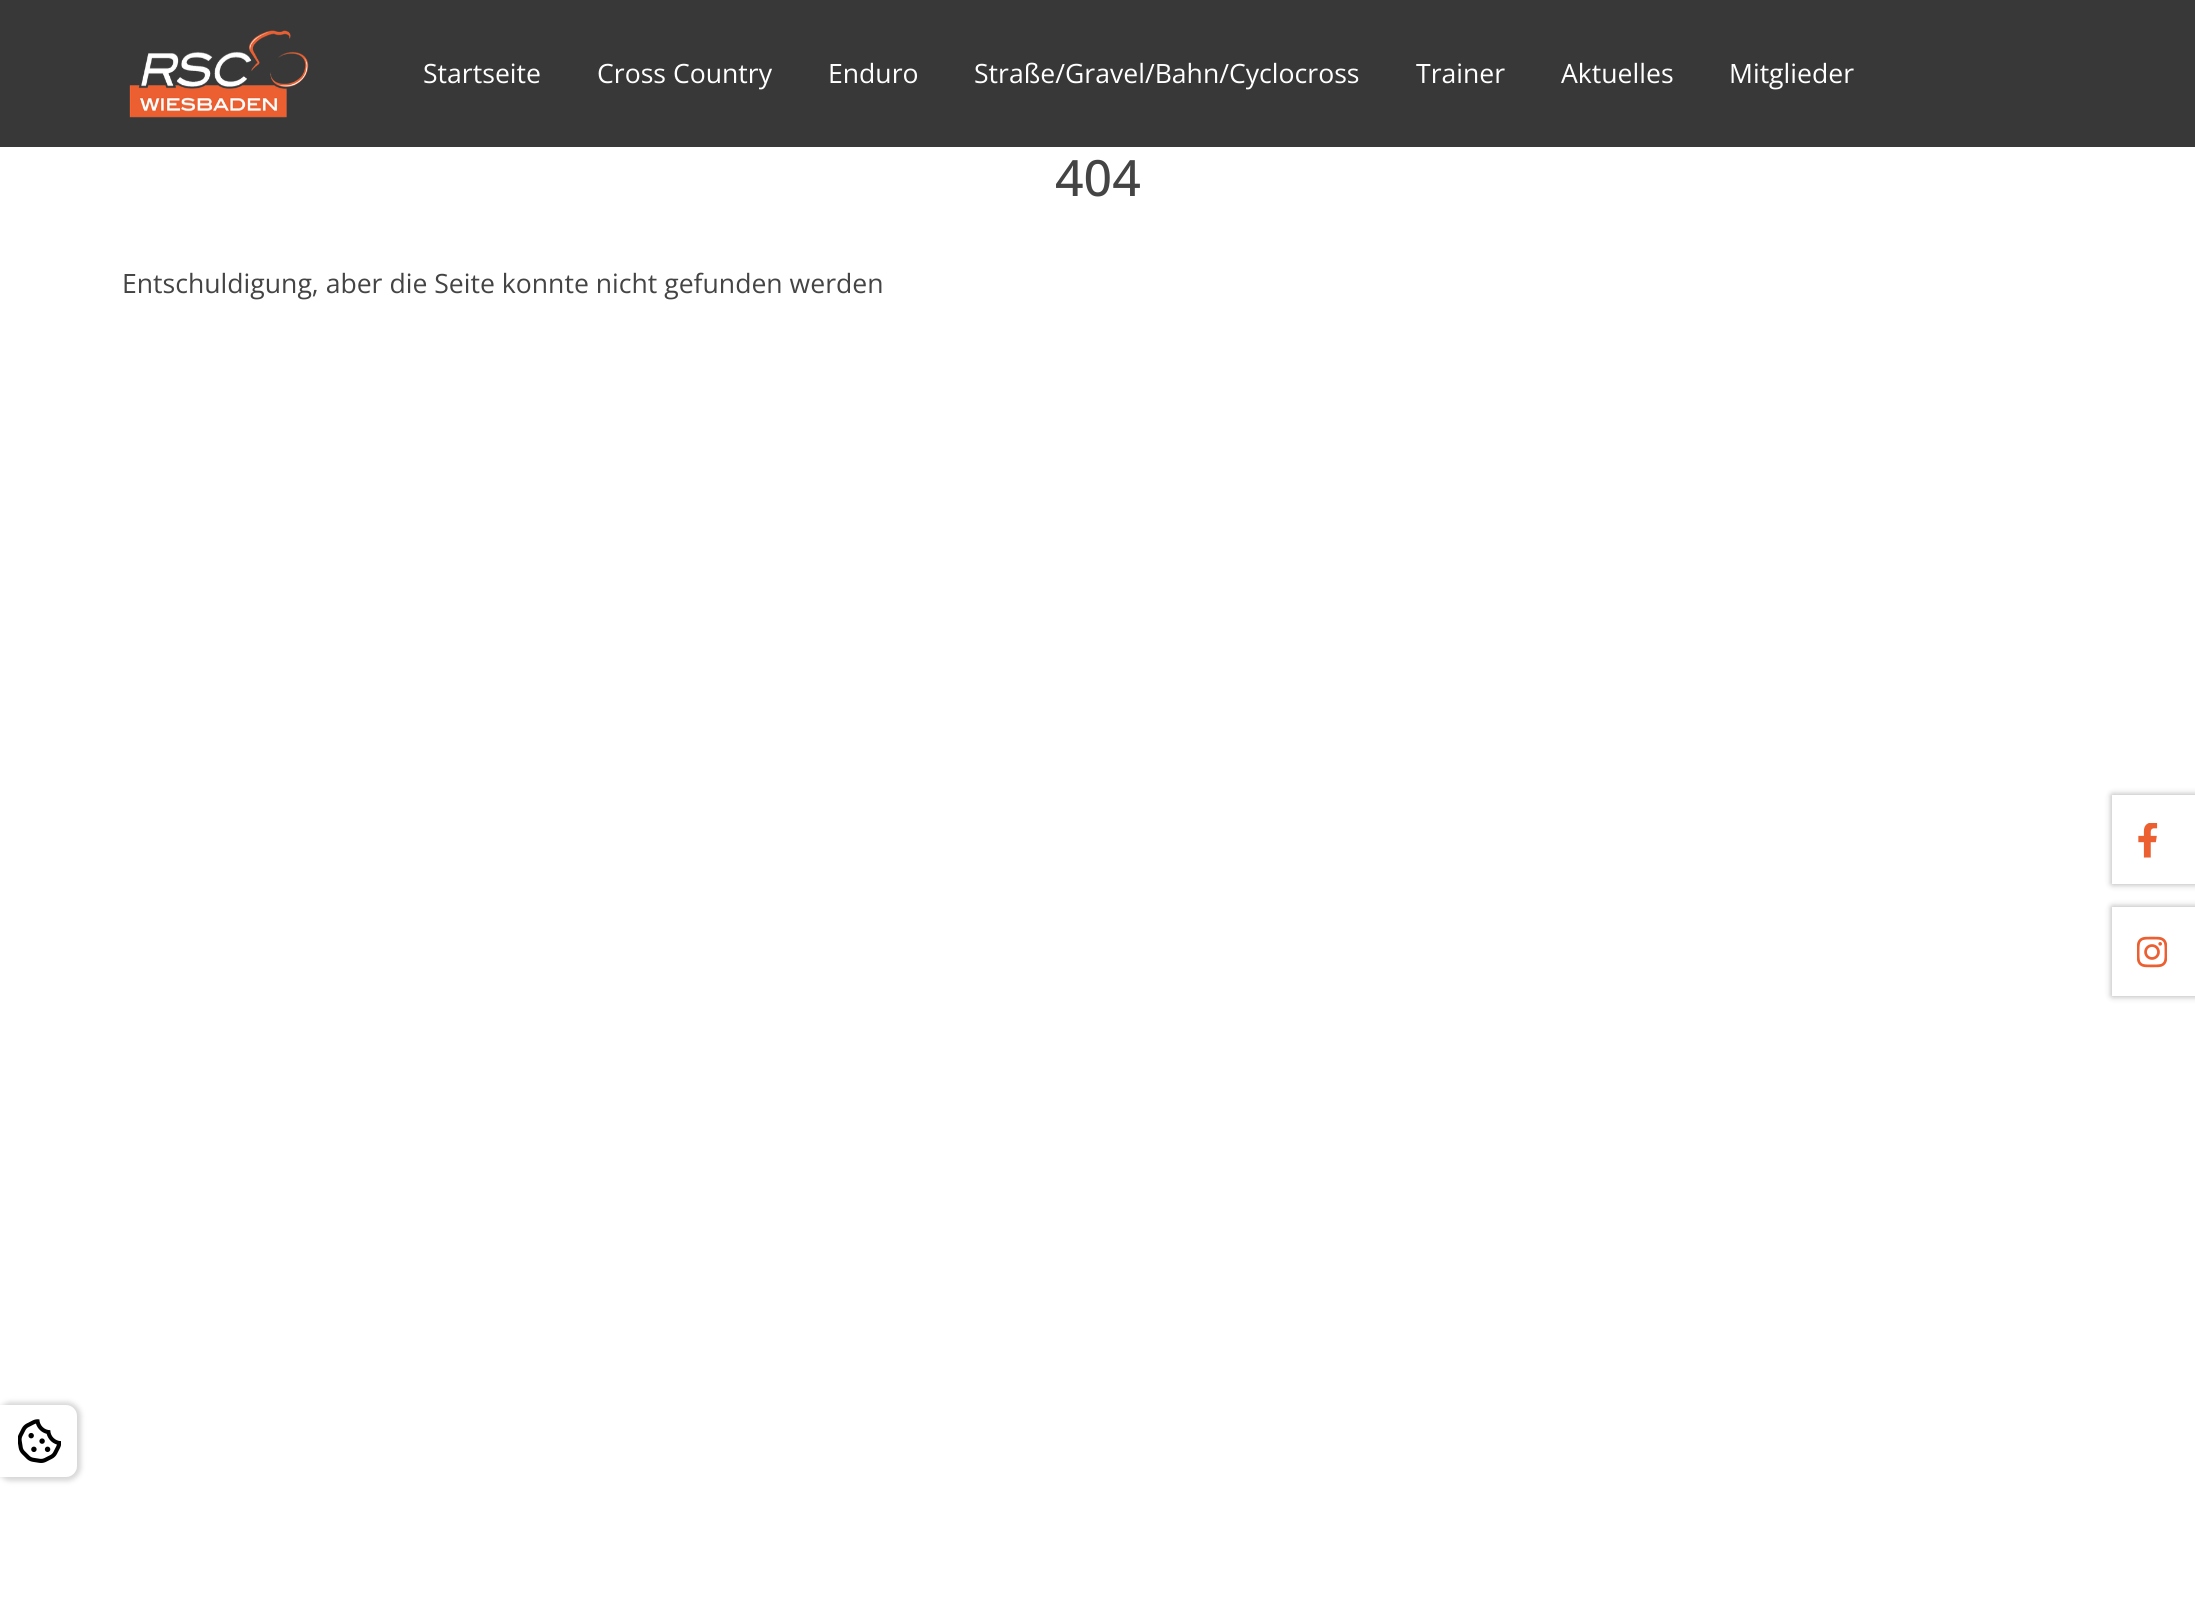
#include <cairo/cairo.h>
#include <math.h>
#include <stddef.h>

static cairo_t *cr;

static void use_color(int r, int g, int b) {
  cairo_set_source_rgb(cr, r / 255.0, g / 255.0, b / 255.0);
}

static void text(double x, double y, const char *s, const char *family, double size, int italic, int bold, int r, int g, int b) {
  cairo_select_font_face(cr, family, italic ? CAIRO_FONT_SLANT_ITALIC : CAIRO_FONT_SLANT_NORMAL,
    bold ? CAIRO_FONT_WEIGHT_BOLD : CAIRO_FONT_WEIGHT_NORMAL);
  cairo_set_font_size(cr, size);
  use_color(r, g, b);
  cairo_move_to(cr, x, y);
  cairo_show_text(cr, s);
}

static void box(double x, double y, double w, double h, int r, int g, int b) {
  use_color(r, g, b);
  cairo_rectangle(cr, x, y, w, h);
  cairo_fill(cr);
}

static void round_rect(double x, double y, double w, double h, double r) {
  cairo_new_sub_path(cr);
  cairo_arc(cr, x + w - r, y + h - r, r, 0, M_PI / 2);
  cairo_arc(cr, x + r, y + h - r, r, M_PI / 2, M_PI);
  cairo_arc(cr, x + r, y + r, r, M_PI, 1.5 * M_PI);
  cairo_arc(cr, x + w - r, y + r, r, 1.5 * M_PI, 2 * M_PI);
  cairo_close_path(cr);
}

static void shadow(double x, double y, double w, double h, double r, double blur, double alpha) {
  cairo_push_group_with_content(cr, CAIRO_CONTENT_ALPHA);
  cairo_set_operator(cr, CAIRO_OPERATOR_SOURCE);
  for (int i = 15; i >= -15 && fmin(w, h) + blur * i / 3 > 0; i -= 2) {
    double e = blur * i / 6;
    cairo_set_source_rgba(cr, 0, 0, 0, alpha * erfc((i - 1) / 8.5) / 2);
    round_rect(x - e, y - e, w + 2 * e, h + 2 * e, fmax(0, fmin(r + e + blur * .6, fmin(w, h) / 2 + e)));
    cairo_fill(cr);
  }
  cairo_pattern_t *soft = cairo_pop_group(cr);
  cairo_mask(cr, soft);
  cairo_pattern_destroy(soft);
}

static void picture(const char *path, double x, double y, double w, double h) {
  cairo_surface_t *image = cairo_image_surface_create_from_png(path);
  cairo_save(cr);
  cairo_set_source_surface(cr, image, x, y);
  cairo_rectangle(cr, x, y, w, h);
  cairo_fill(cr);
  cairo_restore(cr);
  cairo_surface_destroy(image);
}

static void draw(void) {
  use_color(255, 255, 255);
  cairo_paint(cr);
  box(0, 0, 2195, 147, 56, 56, 56);
  picture("img_01.png", 129, 30, 180, 88);
  use_color(0, 0, 0);
  shadow(2112, 795, 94, 89, 0, 3.5, 0.34);
  box(2112, 795, 83, 89, 255, 255, 255);
  picture("img_02.png", 2138, 823, 20, 35);
  use_color(0, 0, 0);
  shadow(2112, 907, 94, 89, 0, 3.5, 0.34);
  box(2112, 907, 83, 89, 255, 255, 255);
  picture("img_03.png", 2137, 936, 30, 32);
  use_color(204, 204, 204);
  shadow(-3, 1402, 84, 79, 14, 2.5, 0.8);
  use_color(255, 255, 255);
  cairo_new_path(cr);
  cairo_move_to(cr, 0, 1405);
  cairo_line_to(cr, 66, 1405);
  cairo_curve_to(cr, 72, 1405, 77, 1410, 77, 1416);
  cairo_line_to(cr, 77, 1466);
  cairo_curve_to(cr, 77, 1472, 72, 1477, 66, 1477);
  cairo_line_to(cr, 0, 1477);
  cairo_close_path(cr);
  cairo_fill(cr);
  picture("img_04.png", 18, 1419, 43, 44);
  text(423, 83, "Startseite", "Open Sans", 26.6, 0, 0, 255, 255, 255);
  text(597, 83, "Cross Country", "Open Sans", 26.6, 0, 0, 255, 255, 255);
  text(828, 83, "Enduro", "Open Sans", 26.6, 0, 0, 255, 255, 255);
  text(974, 83, "Straße/Gravel/Bahn/Cyclocross", "Open Sans", 26.6, 0, 0, 255, 255, 255);
  text(1416, 83, "Trainer", "Open Sans", 26.6, 0, 0, 255, 255, 255);
  text(1561, 83, "Aktuelles", "Open Sans", 26.6, 0, 0, 255, 255, 255);
  text(1729, 83, "Mitglieder", "Open Sans", 26.6, 0, 0, 255, 255, 255);
  text(1055, 196, "404", "Open Sans Medium", 50, 0, 0, 68, 68, 68);
  text(122, 293, "Entschuldigung, aber die Seite konnte nicht gefunden werden", "Open Sans", 26.6, 0, 0, 68, 68, 68);
}

int main(void) {
  cairo_surface_t *surface = cairo_image_surface_create(CAIRO_FORMAT_RGB24, 2195, 1617);
  cr = cairo_create(surface);
  cairo_font_options_t *options = cairo_font_options_create();
  cairo_font_options_set_hint_metrics(options, CAIRO_HINT_METRICS_OFF);
  cairo_font_options_set_hint_style(options, CAIRO_HINT_STYLE_NONE);
  cairo_set_font_options(cr, options);
  cairo_set_miter_limit(cr, 4);
  draw();
  cairo_surface_write_to_png(surface, "out.png");
  cairo_font_options_destroy(options);
  cairo_destroy(cr);
  cairo_surface_destroy(surface);
  return 0;
}
